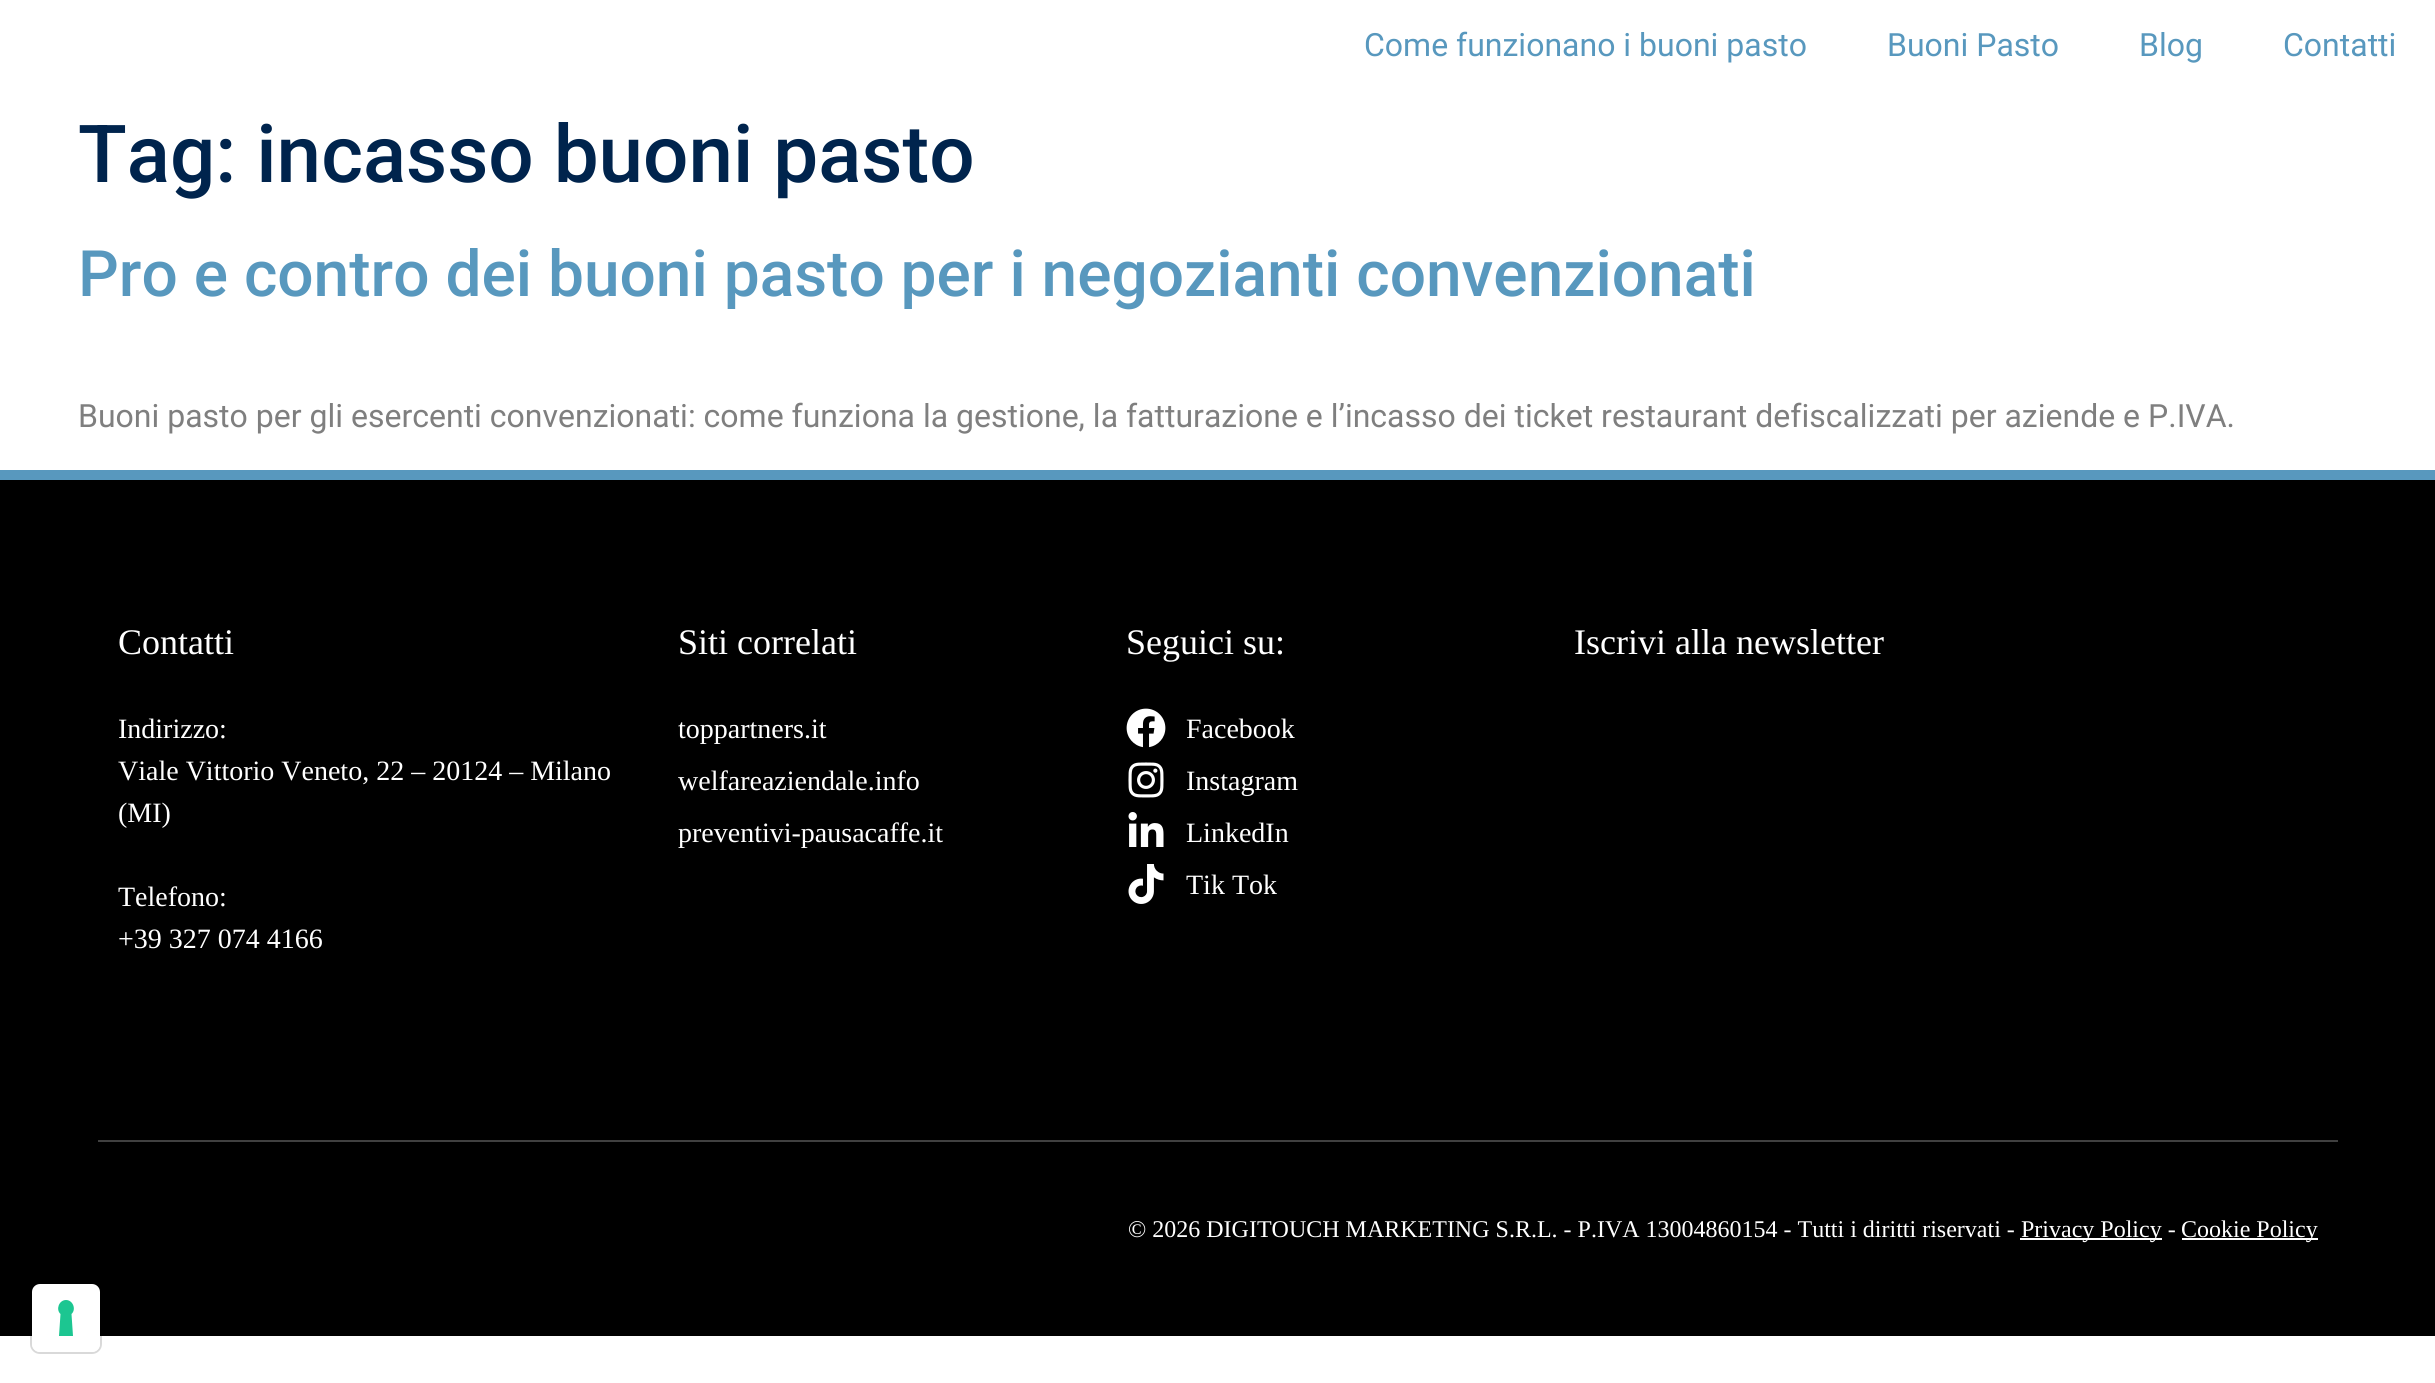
#include <cairo/cairo.h>
#include <math.h>
#include <stddef.h>

static cairo_t *cr;

static void use_color(int r, int g, int b) {
  cairo_set_source_rgb(cr, r / 255.0, g / 255.0, b / 255.0);
}

static void text(double x, double y, const char *s, const char *family, double size, int italic, int bold, int r, int g, int b) {
  cairo_select_font_face(cr, family, italic ? CAIRO_FONT_SLANT_ITALIC : CAIRO_FONT_SLANT_NORMAL,
    bold ? CAIRO_FONT_WEIGHT_BOLD : CAIRO_FONT_WEIGHT_NORMAL);
  cairo_set_font_size(cr, size);
  use_color(r, g, b);
  cairo_move_to(cr, x, y);
  cairo_show_text(cr, s);
}

static void box(double x, double y, double w, double h, int r, int g, int b) {
  use_color(r, g, b);
  cairo_rectangle(cr, x, y, w, h);
  cairo_fill(cr);
}

static void round_rect(double x, double y, double w, double h, double r) {
  cairo_new_sub_path(cr);
  cairo_arc(cr, x + w - r, y + h - r, r, 0, M_PI / 2);
  cairo_arc(cr, x + r, y + h - r, r, M_PI / 2, M_PI);
  cairo_arc(cr, x + r, y + r, r, M_PI, 1.5 * M_PI);
  cairo_arc(cr, x + w - r, y + r, r, 1.5 * M_PI, 2 * M_PI);
  cairo_close_path(cr);
}

static void picture(const char *path, double x, double y, double w, double h) {
  cairo_surface_t *image = cairo_image_surface_create_from_png(path);
  cairo_save(cr);
  cairo_set_source_surface(cr, image, x, y);
  cairo_rectangle(cr, x, y, w, h);
  cairo_fill(cr);
  cairo_restore(cr);
  cairo_surface_destroy(image);
}

static void draw(void) {
  use_color(255, 255, 255);
  cairo_paint(cr);
  box(0, 480, 2435, 856, 0, 0, 0);
  box(0, 470, 2435, 10, 88, 152, 190);
  picture("img_01.png", 1126, 708, 40, 40);
  picture("img_02.png", 1128, 762, 36, 36);
  picture("img_03.png", 1128, 812, 36, 35);
  picture("img_04.png", 1128, 864, 36, 40);
  box(98, 1140, 2240, 2, 64, 64, 64);
  box(2020, 1238, 142, 2, 255, 255, 255);
  box(2182, 1238, 136, 2, 255, 255, 255);
  round_rect(31, 1283, 70, 70, 9);
  cairo_set_source_rgba(cr, 0, 0, 0, 0.15);
  cairo_stroke(cr);
  use_color(255, 255, 255);
  round_rect(32, 1284, 68, 68, 8);
  cairo_fill(cr);
  use_color(28, 198, 145);
  cairo_set_fill_rule(cr, CAIRO_FILL_RULE_EVEN_ODD);
  cairo_new_path(cr);
  cairo_move_to(cr, 66, 1300);
  cairo_curve_to(cr, 73, 1300, 76.5, 1309.5, 71.5, 1314);
  cairo_line_to(cr, 73, 1336);
  cairo_line_to(cr, 59, 1336);
  cairo_line_to(cr, 60.5, 1314);
  cairo_curve_to(cr, 55.5, 1309.5, 59, 1300, 66, 1300);
  cairo_close_path(cr);
  cairo_fill(cr);
  text(1364, 56, "Come funzionano i buoni pasto", "Roboto", 32, 0, 0, 88, 152, 190);
  text(1887, 56, "Buoni Pasto", "Roboto", 32, 0, 0, 88, 152, 190);
  text(2139, 56, "Blog", "Roboto", 32, 0, 0, 88, 152, 190);
  text(2283, 56, "Contatti", "Roboto", 32, 0, 0, 88, 152, 190);
  text(78, 182, "Tag: incasso buoni pasto", "Roboto Medium", 80, 0, 0, 0, 36, 77);
  text(78, 296, "Pro e contro dei buoni pasto per i negozianti convenzionati", "Roboto Medium", 64, 0, 0, 88, 152, 190);
  text(78, 427, "Buoni pasto per gli esercenti convenzionati: come funziona la gestione, la fatturazione e l’incasso dei ticket restaurant defiscalizzati per aziende e P.IVA.", "Roboto", 32, 0, 0, 127, 127, 127);
  text(118, 654, "Contatti", "Liberation Serif", 36, 0, 0, 255, 255, 255);
  text(118, 738, "Indirizzo:", "Liberation Serif", 28, 0, 0, 255, 255, 255);
  text(118, 780, "Viale Vittorio Veneto, 22 – 20124 – Milano", "Liberation Serif", 28, 0, 0, 255, 255, 255);
  text(118, 822, "(MI)", "Liberation Serif", 28, 0, 0, 255, 255, 255);
  text(118, 906, "Telefono:", "Liberation Serif", 28, 0, 0, 255, 255, 255);
  text(118, 948, "+39 327 074 4166", "Liberation Serif", 28, 0, 0, 255, 255, 255);
  text(678, 654, "Siti correlati", "Liberation Serif", 36, 0, 0, 255, 255, 255);
  text(678, 738, "toppartners.it", "Liberation Serif", 28, 0, 0, 255, 255, 255);
  text(678, 790, "welfareaziendale.info", "Liberation Serif", 28, 0, 0, 255, 255, 255);
  text(678, 842, "preventivi-pausacaffe.it", "Liberation Serif", 28, 0, 0, 255, 255, 255);
  text(1126, 654, "Seguici su:", "Liberation Serif", 36, 0, 0, 255, 255, 255);
  text(1186, 738, "Facebook", "Liberation Serif", 28, 0, 0, 255, 255, 255);
  text(1186, 790, "Instagram", "Liberation Serif", 28, 0, 0, 255, 255, 255);
  text(1186, 842, "LinkedIn", "Liberation Serif", 28, 0, 0, 255, 255, 255);
  text(1186, 894, "Tik Tok", "Liberation Serif", 28, 0, 0, 255, 255, 255);
  text(1574, 654, "Iscrivi alla newsletter", "Liberation Serif", 36, 0, 0, 255, 255, 255);
  text(1128, 1237, "© 2026 DIGITOUCH MARKETING S.R.L. - P.IVA 13004860154 - Tutti i diritti riservati -", "Liberation Serif", 24, 0, 0, 255, 255, 255);
  text(2021, 1237, "Privacy Policy -", "Liberation Serif", 24, 0, 0, 255, 255, 255);
  text(2181, 1237, "Cookie Policy", "Liberation Serif", 24, 0, 0, 255, 255, 255);
}

int main(void) {
  cairo_surface_t *surface = cairo_image_surface_create(CAIRO_FORMAT_RGB24, 2435, 1383);
  cr = cairo_create(surface);
  cairo_font_options_t *options = cairo_font_options_create();
  cairo_font_options_set_hint_metrics(options, CAIRO_HINT_METRICS_OFF);
  cairo_font_options_set_hint_style(options, CAIRO_HINT_STYLE_NONE);
  cairo_set_font_options(cr, options);
  cairo_set_miter_limit(cr, 4);
  draw();
  cairo_surface_write_to_png(surface, "out.png");
  cairo_font_options_destroy(options);
  cairo_destroy(cr);
  cairo_surface_destroy(surface);
  return 0;
}
